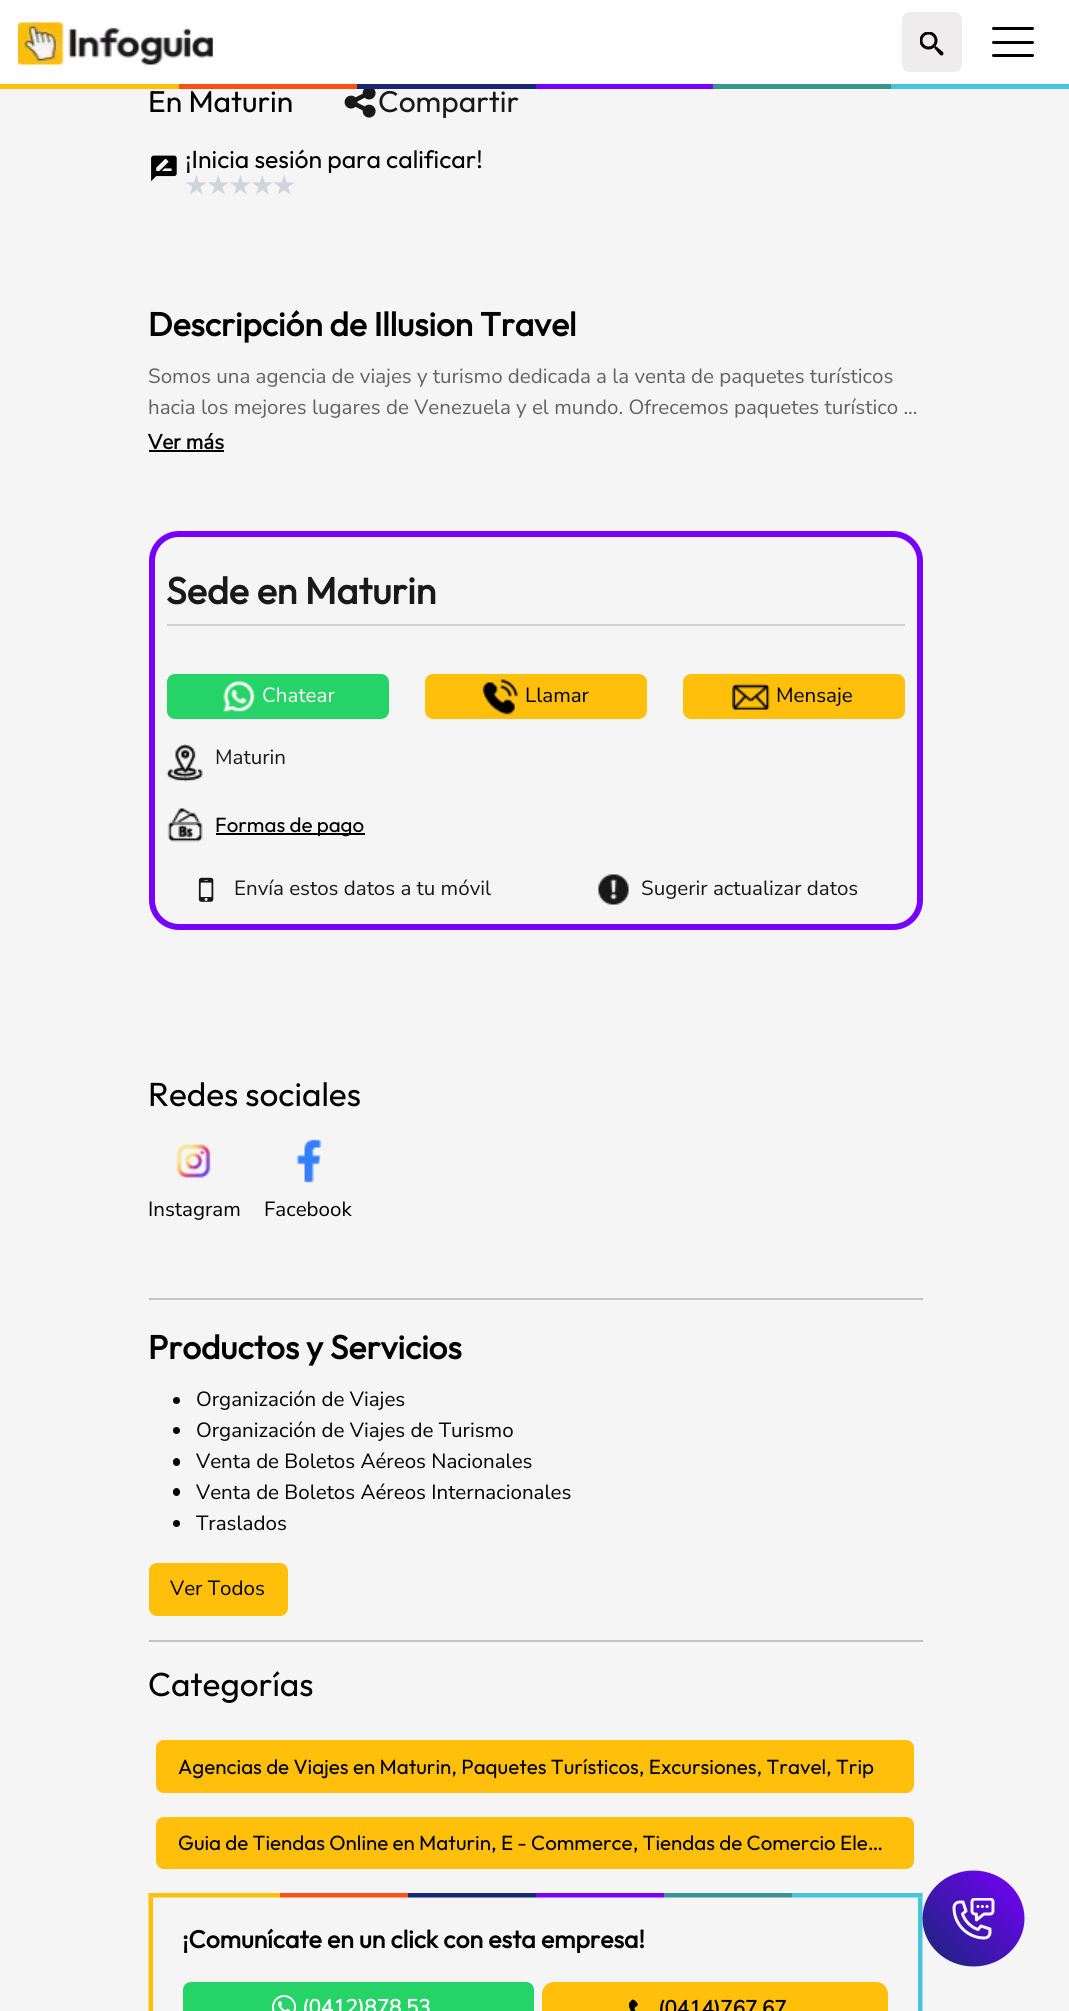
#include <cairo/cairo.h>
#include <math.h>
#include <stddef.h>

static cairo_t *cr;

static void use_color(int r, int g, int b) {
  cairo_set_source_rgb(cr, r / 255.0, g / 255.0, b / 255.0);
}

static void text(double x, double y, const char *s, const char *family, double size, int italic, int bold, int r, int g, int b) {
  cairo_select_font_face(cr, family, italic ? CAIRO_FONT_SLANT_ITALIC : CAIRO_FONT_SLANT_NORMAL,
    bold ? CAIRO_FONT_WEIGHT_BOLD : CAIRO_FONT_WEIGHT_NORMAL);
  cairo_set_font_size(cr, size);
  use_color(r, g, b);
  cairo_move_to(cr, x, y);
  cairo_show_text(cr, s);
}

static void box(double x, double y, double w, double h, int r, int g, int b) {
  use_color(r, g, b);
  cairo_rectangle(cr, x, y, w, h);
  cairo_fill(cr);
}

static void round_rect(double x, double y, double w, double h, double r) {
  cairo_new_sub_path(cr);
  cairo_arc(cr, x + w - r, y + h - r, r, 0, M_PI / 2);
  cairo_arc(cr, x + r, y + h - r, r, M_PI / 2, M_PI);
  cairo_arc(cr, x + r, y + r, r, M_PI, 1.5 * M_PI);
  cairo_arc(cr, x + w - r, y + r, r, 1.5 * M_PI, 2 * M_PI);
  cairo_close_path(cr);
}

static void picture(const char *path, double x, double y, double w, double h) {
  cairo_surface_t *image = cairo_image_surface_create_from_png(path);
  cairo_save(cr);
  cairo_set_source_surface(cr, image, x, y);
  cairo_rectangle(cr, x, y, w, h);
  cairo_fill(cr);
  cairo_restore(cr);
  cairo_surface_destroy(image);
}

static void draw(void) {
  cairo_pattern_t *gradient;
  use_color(245, 245, 245);
  cairo_paint(cr);
  box(0, 0, 1069, 84, 255, 255, 255);
  picture("img_01.png", 18, 22, 195, 44);
  use_color(238, 236, 236);
  round_rect(902, 12, 60, 60, 8);
  cairo_fill(cr);
  picture("img_02.png", 920, 32, 24, 24);
  use_color(0, 0, 0);
  round_rect(992, 27, 42, 3, 1.5);
  cairo_fill(cr);
  round_rect(992, 41, 42, 3, 1.5);
  cairo_fill(cr);
  round_rect(992, 54, 42, 3, 1.5);
  cairo_fill(cr);
  box(0, 84, 179, 5, 255, 191, 10);
  box(179, 84, 178, 5, 255, 79, 18);
  box(357, 84, 179, 5, 23, 38, 117);
  box(536, 84, 177, 5, 120, 0, 255);
  box(713, 84, 178, 5, 56, 148, 145);
  box(891, 84, 178, 5, 69, 196, 222);
  picture("img_03.png", 344, 89, 32, 29);
  picture("img_04.png", 151, 155, 26, 27);
  box(149, 450, 75, 2, 0, 0, 0);
  round_rect(152, 534, 768, 393, 27);
  use_color(120, 0, 255);
  cairo_set_line_width(cr, 6);
  cairo_stroke(cr);
  box(167, 624, 738, 2, 208, 208, 208);
  use_color(37, 211, 102);
  round_rect(167, 674, 222, 45, 8);
  cairo_fill(cr);
  picture("img_05.png", 223, 680, 33, 33);
  use_color(255, 191, 11);
  round_rect(425, 674, 222, 45, 8);
  cairo_fill(cr);
  picture("img_06.png", 482, 679, 36, 36);
  round_rect(683, 674, 222, 45, 8);
  cairo_fill(cr);
  picture("img_07.png", 732, 683, 38, 27);
  picture("img_08.png", 166, 744, 37, 38);
  picture("img_09.png", 167, 808, 36, 34);
  box(216, 833, 149, 2, 0, 0, 0);
  picture("img_10.png", 198, 877, 16, 25);
  picture("img_11.png", 598, 874, 31, 31);
  picture("img_12.png", 176, 1144, 35, 34);
  picture("img_13.png", 296, 1139, 26, 44);
  box(149, 1298, 774, 2, 196, 196, 196);
  use_color(0, 0, 0);
  cairo_arc(cr, 176.5, 1400.5, 3.5, 0, 2 * M_PI);
  cairo_fill(cr);
  cairo_arc(cr, 176.5, 1430.5, 3.5, 0, 2 * M_PI);
  cairo_fill(cr);
  round_rect(173, 1458, 7, 8, 3.5);
  cairo_fill(cr);
  round_rect(173, 1488, 7, 8, 3.5);
  cairo_fill(cr);
  cairo_arc(cr, 176.5, 1523.5, 3.5, 0, 2 * M_PI);
  cairo_fill(cr);
  use_color(255, 191, 11);
  round_rect(149, 1563, 139, 53, 8);
  cairo_fill(cr);
  box(149, 1640, 774, 2, 196, 196, 196);
  use_color(255, 191, 11);
  round_rect(156, 1740, 758, 53, 8);
  cairo_fill(cr);
  round_rect(156, 1817, 758, 52, 8);
  cairo_fill(cr);
  picture("img_14.png", 148, 1893, 775, 118);
  use_color(37, 211, 102);
  round_rect(183, 1982, 351, 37, 8);
  cairo_fill(cr);
  picture("img_15.png", 272, 1995, 24, 16);
  use_color(255, 191, 11);
  round_rect(542, 1982, 346, 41, 12);
  cairo_fill(cr);
  picture("img_16.png", 629, 1999, 9, 12);
  gradient = cairo_pattern_create_linear(924, 1968, 1023, 1869);
  cairo_pattern_add_color_stop_rgba(gradient, 0, 0.008, 0, 0.141, 1);
  cairo_pattern_add_color_stop_rgba(gradient, 0, 0.09, 0.149, 0.459, 1);
  cairo_pattern_add_color_stop_rgba(gradient, 1, 0.471, 0, 1, 1);
  cairo_set_source(cr, gradient);
  cairo_pattern_destroy(gradient);
  cairo_new_path(cr);
  cairo_move_to(cr, 973.5, 1870.5);
  cairo_curve_to(cr, 1001.5, 1870.5, 1024.5, 1892, 1024.5, 1918.5);
  cairo_curve_to(cr, 1024.5, 1945, 1001.5, 1966.5, 973.5, 1966.5);
  cairo_curve_to(cr, 945.5, 1966.5, 922.5, 1945, 922.5, 1918.5);
  cairo_curve_to(cr, 922.5, 1892, 945.5, 1870.5, 973.5, 1870.5);
  cairo_close_path(cr);
  cairo_fill(cr);
  picture("img_17.png", 952, 1898, 43, 42);
  text(148, 112, "En Maturin", "Outfit Thin", 30, 0, 0, 0, 0, 0);
  text(378, 112, "Compartir", "Outfit Thin", 30, 0, 0, 25, 25, 25);
  text(185, 168, "¡Inicia sesión para calificar!", "Outfit Thin", 24.8, 0, 0, 0, 0, 0);
  text(185, 194, "★★★★★", "DejaVu Sans", 24.5, 0, 1, 209, 213, 219);
  text(148, 336, "Descripción de Illusion Travel", "Outfit", 33.3, 0, 1, 0, 0, 0);
  text(148, 383, "Somos una agencia de viajes y turismo dedicada a la venta de paquetes turísticos", "Nunito Sans", 20.55, 0, 0, 98, 98, 98);
  text(148, 414, "hacia los mejores lugares de Venezuela y el mundo. Ofrecemos paquetes turístico ...", "Nunito Sans", 20.55, 0, 0, 98, 98, 98);
  text(148, 449, "Ver más", "Nunito Sans", 20.55, 0, 1, 0, 0, 0);
  text(166, 604, "Sede en Maturin", "Outfit", 37.5, 0, 1, 25, 25, 25);
  text(262, 702, "Chatear", "Nunito Sans", 20.55, 0, 0, 255, 255, 255);
  text(525, 702, "Llamar", "Nunito Sans", 20.55, 0, 0, 0, 0, 0);
  text(776, 702, "Mensaje", "Nunito Sans", 20.55, 0, 0, 0, 0, 0);
  text(215, 764, "Maturin", "Nunito Sans", 20.55, 0, 0, 25, 25, 25);
  text(215, 832, "Formas de pago", "Outfit Thin", 20.55, 0, 0, 0, 0, 0);
  text(234, 895, "Envía estos datos a tu móvil", "Nunito Sans", 20.55, 0, 0, 25, 25, 25);
  text(641, 895, "Sugerir actualizar datos", "Nunito Sans", 20.55, 0, 0, 25, 25, 25);
  text(148, 1106, "Redes sociales", "Outfit Thin", 33.3, 0, 0, 0, 0, 0);
  text(148, 1216, "Instagram", "Nunito Sans", 20.55, 0, 0, 0, 0, 0);
  text(264, 1216, "Facebook", "Nunito Sans", 20.55, 0, 0, 0, 0, 0);
  text(148, 1359, "Productos y Servicios", "Outfit", 33.3, 0, 1, 0, 0, 0);
  text(196, 1406, "Organización de Viajes", "Nunito Sans", 20.55, 0, 0, 0, 0, 0);
  text(196, 1437, "Organización de Viajes de Turismo", "Nunito Sans", 20.55, 0, 0, 0, 0, 0);
  text(196, 1468, "Venta de Boletos Aéreos Nacionales", "Nunito Sans", 20.55, 0, 0, 0, 0, 0);
  text(196, 1499, "Venta de Boletos Aéreos Internacionales", "Nunito Sans", 20.55, 0, 0, 0, 0, 0);
  text(196, 1530, "Traslados", "Nunito Sans", 20.55, 0, 0, 0, 0, 0);
  text(170, 1595, "Ver Todos", "Nunito Sans", 20.55, 0, 0, 0, 0, 0);
  text(148, 1696, "Categorías", "Outfit Thin", 33.3, 0, 0, 0, 0, 0);
  text(178, 1774, "Agencias de Viajes en Maturin, Paquetes Turísticos, Excursiones, Travel, Trip", "Outfit Thin", 20.55, 0, 0, 0, 0, 0);
  text(178, 1850, "Guia de Tiendas Online en Maturin, E - Commerce, Tiendas de Comercio Ele…", "Outfit Thin", 20.55, 0, 0, 0, 0, 0);
  text(182, 1948, "¡Comunícate en un click con esta empresa!", "Outfit", 24.8, 0, 1, 0, 0, 0);
  text(302, 2014, "(0412)878.53", "Nunito Sans", 20.55, 0, 1, 255, 255, 255);
  text(658, 2015, "(0414)767.67", "Nunito Sans", 20.55, 0, 1, 0, 0, 0);
}

int main(void) {
  cairo_surface_t *surface = cairo_image_surface_create(CAIRO_FORMAT_RGB24, 1069, 2011);
  cr = cairo_create(surface);
  cairo_font_options_t *options = cairo_font_options_create();
  cairo_font_options_set_hint_metrics(options, CAIRO_HINT_METRICS_OFF);
  cairo_font_options_set_hint_style(options, CAIRO_HINT_STYLE_NONE);
  cairo_set_font_options(cr, options);
  cairo_set_miter_limit(cr, 4);
  draw();
  cairo_surface_write_to_png(surface, "out.png");
  cairo_font_options_destroy(options);
  cairo_destroy(cr);
  cairo_surface_destroy(surface);
  return 0;
}
